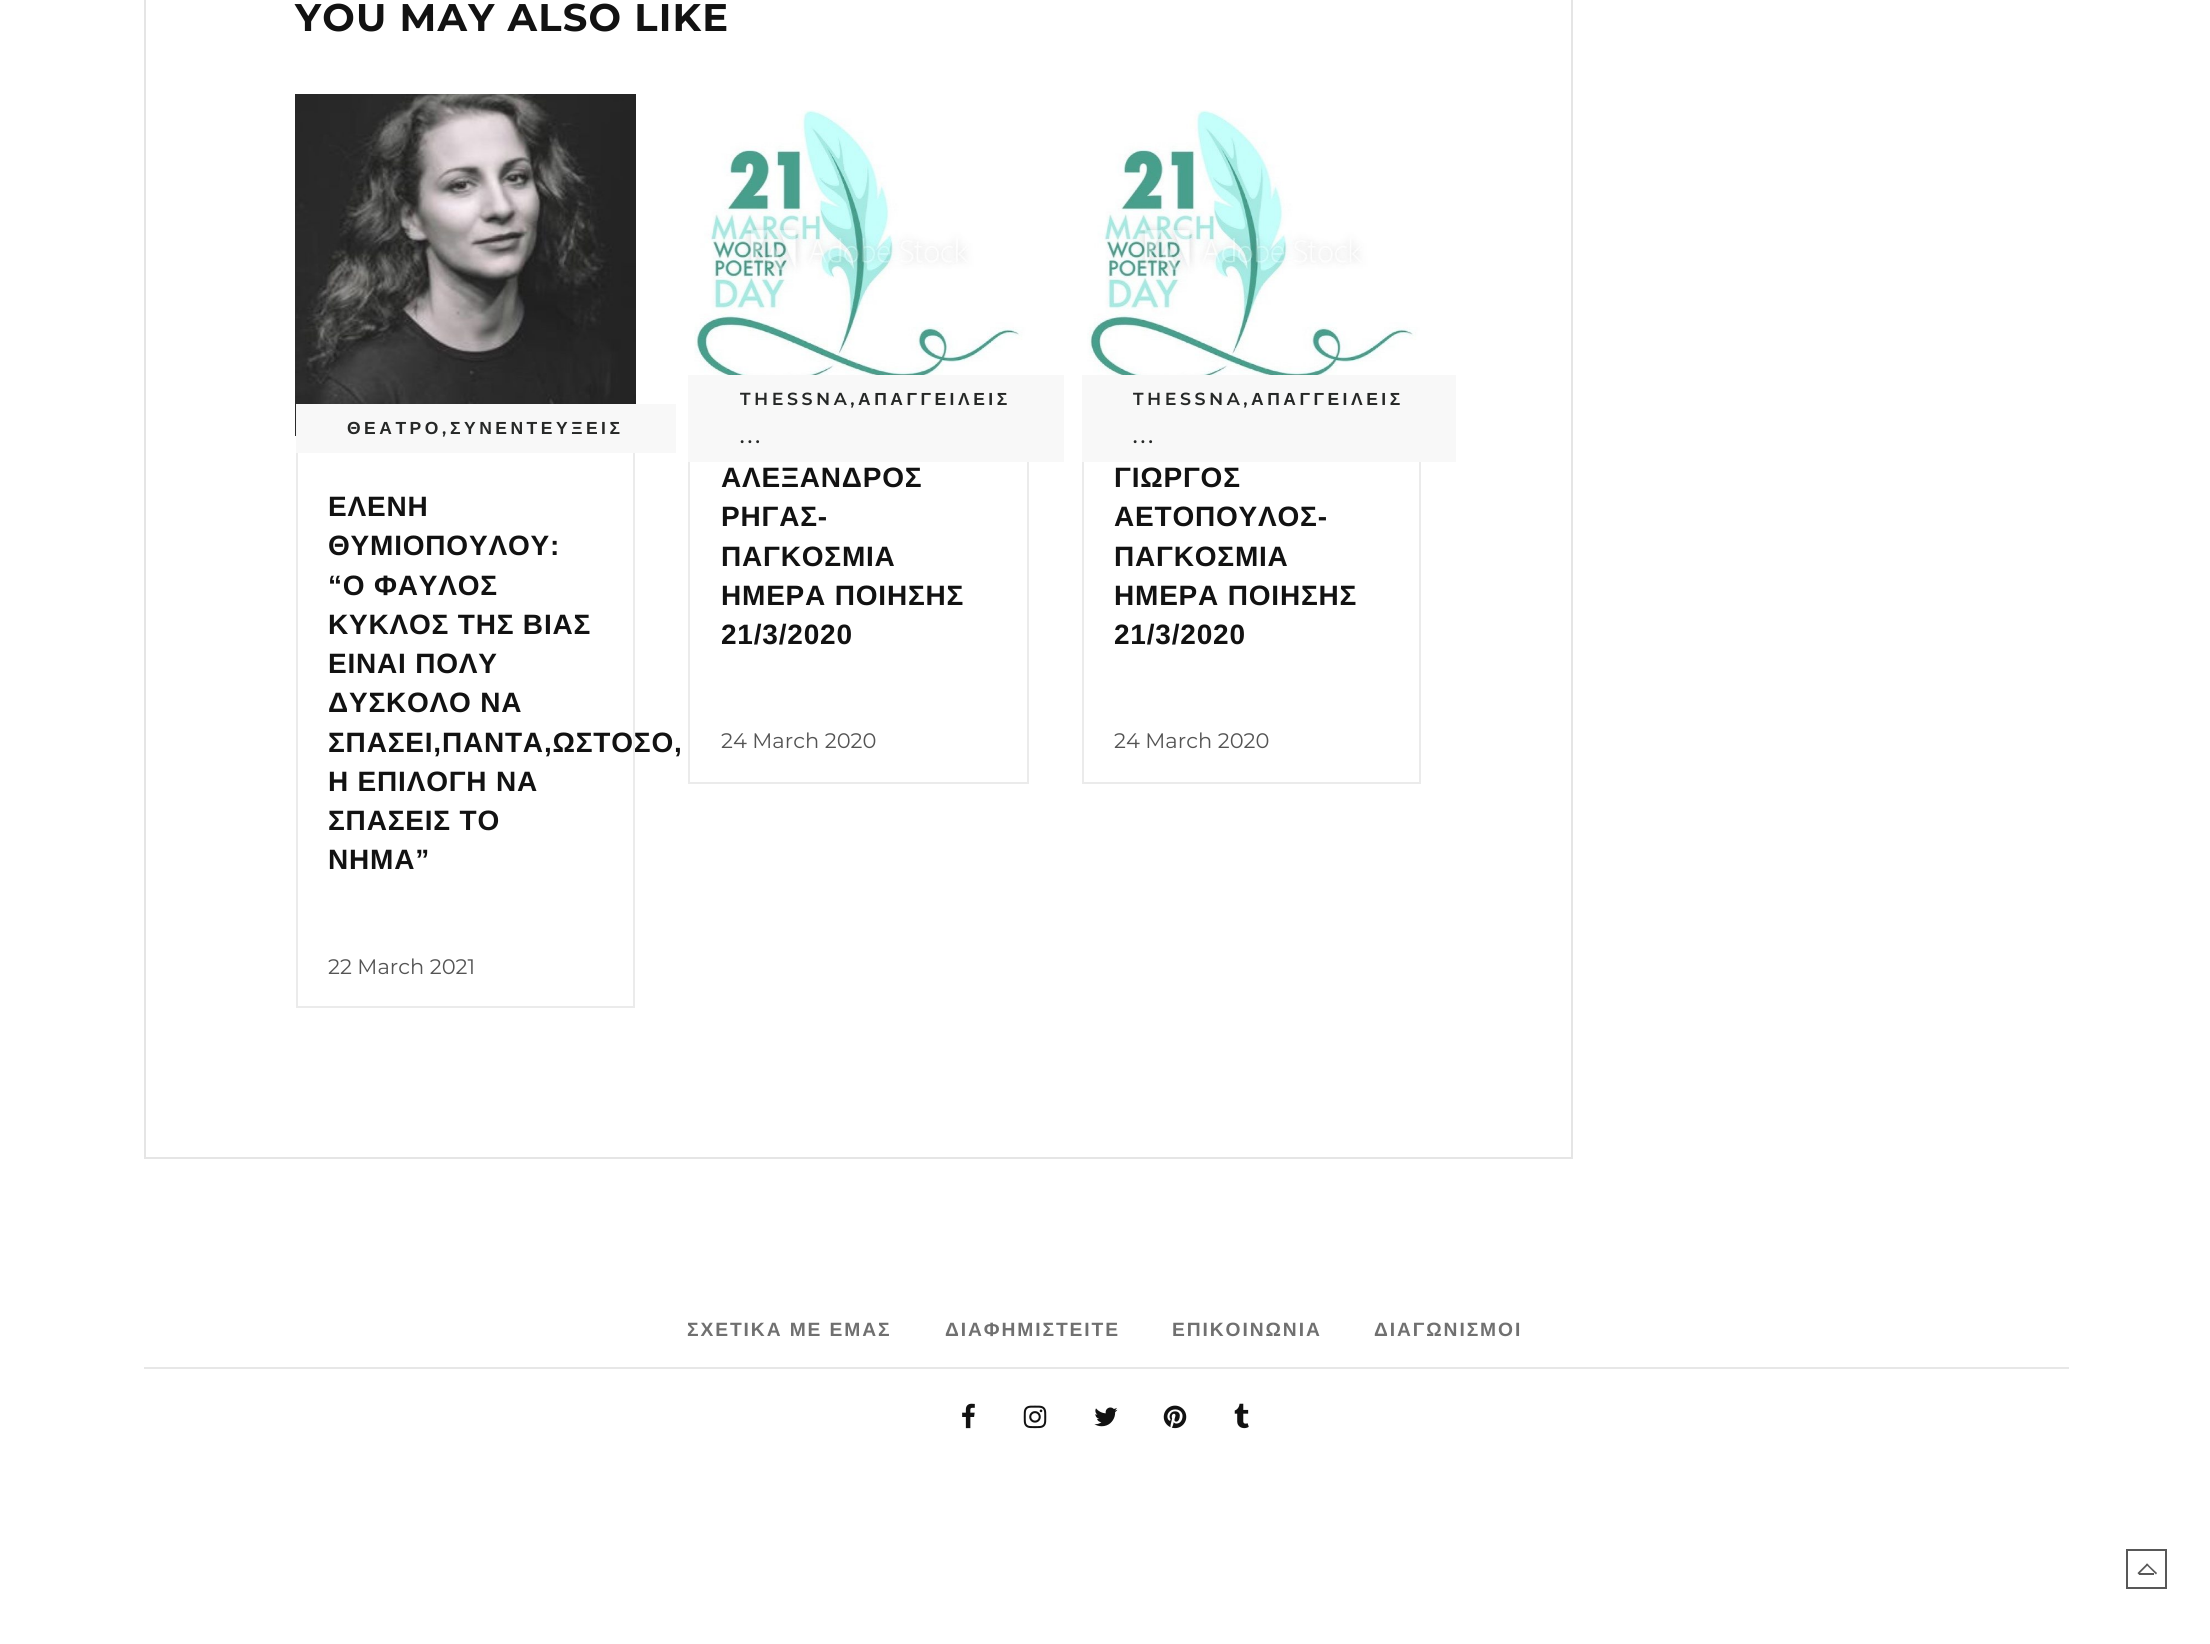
#include <cairo/cairo.h>
#include <math.h>
#include <stddef.h>

static cairo_t *cr;

static void use_color(int r, int g, int b) {
  cairo_set_source_rgb(cr, r / 255.0, g / 255.0, b / 255.0);
}

static void text(double x, double y, const char *s, const char *family, double size, int italic, int bold, int r, int g, int b) {
  cairo_select_font_face(cr, family, italic ? CAIRO_FONT_SLANT_ITALIC : CAIRO_FONT_SLANT_NORMAL,
    bold ? CAIRO_FONT_WEIGHT_BOLD : CAIRO_FONT_WEIGHT_NORMAL);
  cairo_set_font_size(cr, size);
  use_color(r, g, b);
  cairo_move_to(cr, x, y);
  cairo_show_text(cr, s);
}

static void spaced_text(double x, double y, const char *s, double letter, double word) {
  cairo_move_to(cr, x, y);
  while (*s) {
    char ch[5] = {0};
    int n = 0;
    do ch[n++] = *s++; while ((*s & 0xC0) == 0x80);
    cairo_show_text(cr, ch);
    cairo_rel_move_to(cr, letter + word * (*ch == ' '), 0);
  }
}

static void box(double x, double y, double w, double h, int r, int g, int b) {
  use_color(r, g, b);
  cairo_rectangle(cr, x, y, w, h);
  cairo_fill(cr);
}

static void picture(const char *path, double x, double y, double w, double h) {
  cairo_surface_t *image = cairo_image_surface_create_from_png(path);
  cairo_save(cr);
  cairo_set_source_surface(cr, image, x, y);
  cairo_rectangle(cr, x, y, w, h);
  cairo_fill(cr);
  cairo_restore(cr);
  cairo_surface_destroy(image);
}

static void draw(void) {
  use_color(255, 255, 255);
  cairo_paint(cr);
  cairo_rectangle(cr, 145, -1, 1427, 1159);
  use_color(229, 229, 229);
  cairo_stroke(cr);
  picture("img_01.png", 295, 94, 341, 342);
  cairo_rectangle(cr, 297, 437, 337, 570);
  use_color(235, 235, 235);
  cairo_stroke(cr);
  box(296, 404, 380, 49, 248, 248, 248);
  picture("img_02.png", 694, 110, 335, 265);
  cairo_rectangle(cr, 689, 407, 339, 376);
  use_color(235, 235, 235);
  cairo_stroke(cr);
  box(688, 375, 376, 87, 248, 248, 248);
  picture("img_03.png", 1087, 110, 334, 265);
  cairo_rectangle(cr, 1083, 407, 337, 376);
  use_color(235, 235, 235);
  cairo_stroke(cr);
  box(1082, 375, 374, 87, 248, 248, 248);
  box(144, 1367, 1925, 2, 231, 231, 231);
  picture("img_04.png", 962, 1403, 13, 26);
  picture("img_05.png", 1023, 1405, 24, 24);
  picture("img_06.png", 1094, 1407, 24, 20);
  picture("img_07.png", 1163, 1405, 24, 24);
  picture("img_08.png", 1234, 1403, 15, 26);
  cairo_rectangle(cr, 2127, 1550, 39, 38);
  use_color(88, 88, 88);
  cairo_stroke(cr);
  cairo_new_path(cr);
  cairo_move_to(cr, 2137.5, 1573);
  cairo_line_to(cr, 2147, 1563.5);
  cairo_line_to(cr, 2148.5, 1564.5);
  cairo_line_to(cr, 2138.5, 1574.5);
  cairo_close_path(cr);
  cairo_fill(cr);
  cairo_new_path(cr);
  cairo_move_to(cr, 2146, 1564.5);
  cairo_line_to(cr, 2147, 1563.5);
  cairo_line_to(cr, 2157, 1573);
  cairo_line_to(cr, 2156, 1574.5);
  cairo_close_path(cr);
  cairo_fill(cr);
  box(2139, 1573, 15, 2, 88, 88, 88);
  cairo_select_font_face(cr, "Montserrat", CAIRO_FONT_SLANT_NORMAL, CAIRO_FONT_WEIGHT_BOLD);
  cairo_set_font_size(cr, 38.5);
  use_color(18, 18, 18);
  spaced_text(295, 31, "YOU MAY ALSO LIKE", 1.2, 0);
  cairo_select_font_face(cr, "Liberation Sans", CAIRO_FONT_SLANT_NORMAL, CAIRO_FONT_WEIGHT_BOLD);
  cairo_set_font_size(cr, 17.5);
  use_color(38, 40, 39);
  spaced_text(347, 434, "ΘΕΑΤΡΟ", 3.5, 0);
  cairo_select_font_face(cr, "Montserrat SemiBold", CAIRO_FONT_SLANT_NORMAL, CAIRO_FONT_WEIGHT_NORMAL);
  spaced_text(442, 434, ",", 3.5, 0);
  cairo_select_font_face(cr, "Liberation Sans", CAIRO_FONT_SLANT_NORMAL, CAIRO_FONT_WEIGHT_BOLD);
  spaced_text(450, 434, "ΣΥΝΕΝΤΕΥΞΕΙΣ", 3.5, 0);
  cairo_set_font_size(cr, 28);
  use_color(18, 18, 18);
  spaced_text(328, 516, "ΕΛΕΝΗ", 0.8, 0);
  spaced_text(328, 555, "ΘΥΜΙΟΠΟΥΛΟΥ:", 0.8, 0);
  spaced_text(328, 595, "“Ο ΦΑΥΛΟΣ", 0.8, 0);
  spaced_text(328, 634, "ΚΥΚΛΟΣ ΤΗΣ ΒΙΑΣ", 0.8, 0);
  spaced_text(328, 673, "ΕΙΝΑΙ ΠΟΛΥ", 0.8, 0);
  spaced_text(328, 712, "ΔΥΣΚΟΛΟ ΝΑ", 0.8, 0);
  spaced_text(328, 752, "ΣΠΑΣΕΙ,ΠΑΝΤΑ,ΩΣΤΟΣΟ,", 0.8, 0);
  spaced_text(328, 791, "Η ΕΠΙΛΟΓΗ ΝΑ", 0.8, 0);
  spaced_text(328, 830, "ΣΠΑΣΕΙΣ ΤΟ", 0.8, 0);
  spaced_text(328, 869, "ΝΗΜΑ”", 0.8, 0);
  text(328, 974, "22 March 2021", "Montserrat", 21, 0, 0, 84, 84, 84);
  cairo_select_font_face(cr, "Montserrat SemiBold", CAIRO_FONT_SLANT_NORMAL, CAIRO_FONT_WEIGHT_NORMAL);
  cairo_set_font_size(cr, 17.5);
  use_color(38, 40, 39);
  spaced_text(740, 405, "THESSNA,", 3.5, 0);
  spaced_text(740, 443, "...", 3.5, 0);
  cairo_select_font_face(cr, "Liberation Sans", CAIRO_FONT_SLANT_NORMAL, CAIRO_FONT_WEIGHT_BOLD);
  spaced_text(858, 405, "ΑΠΑΓΓΕΙΛΕΙΣ", 3.5, 0);
  cairo_set_font_size(cr, 28);
  use_color(18, 18, 18);
  spaced_text(721, 487, "ΑΛΕΞΑΝΔΡΟΣ", 0.8, 0);
  spaced_text(721, 526, "ΡΗΓΑΣ-", 0.8, 0);
  spaced_text(721, 566, "ΠΑΓΚΟΣΜΙΑ", 0.8, 0);
  spaced_text(721, 605, "ΗΜΕΡΑ ΠΟΙΗΣΗΣ", 0.8, 0);
  spaced_text(721, 644, "21/3/2020", 0.8, 0);
  text(721, 748, "24 March 2020", "Montserrat", 21, 0, 0, 84, 84, 84);
  cairo_select_font_face(cr, "Montserrat SemiBold", CAIRO_FONT_SLANT_NORMAL, CAIRO_FONT_WEIGHT_NORMAL);
  cairo_set_font_size(cr, 17.5);
  use_color(38, 40, 39);
  spaced_text(1133, 405, "THESSNA,", 3.5, 0);
  spaced_text(1133, 443, "...", 3.5, 0);
  cairo_select_font_face(cr, "Liberation Sans", CAIRO_FONT_SLANT_NORMAL, CAIRO_FONT_WEIGHT_BOLD);
  spaced_text(1251, 405, "ΑΠΑΓΓΕΙΛΕΙΣ", 3.5, 0);
  cairo_set_font_size(cr, 28);
  use_color(18, 18, 18);
  spaced_text(1114, 487, "ΓΙΩΡΓΟΣ", 0.8, 0);
  spaced_text(1114, 526, "ΑΕΤΟΠΟΥΛΟΣ-", 0.8, 0);
  spaced_text(1114, 566, "ΠΑΓΚΟΣΜΙΑ", 0.8, 0);
  spaced_text(1114, 605, "ΗΜΕΡΑ ΠΟΙΗΣΗΣ", 0.8, 0);
  spaced_text(1114, 644, "21/3/2020", 0.8, 0);
  text(1114, 748, "24 March 2020", "Montserrat", 21, 0, 0, 84, 84, 84);
  cairo_select_font_face(cr, "Liberation Sans", CAIRO_FONT_SLANT_NORMAL, CAIRO_FONT_WEIGHT_BOLD);
  cairo_set_font_size(cr, 19.25);
  use_color(112, 112, 112);
  spaced_text(687, 1336, "ΣΧΕΤΙΚΑ ΜΕ ΕΜΑΣ", 1.9, 0);
  spaced_text(945, 1336, "ΔΙΑΦΗΜΙΣΤΕΙΤΕ", 1.9, 0);
  spaced_text(1172, 1336, "ΕΠΙΚΟΙΝΩΝΙΑ", 1.9, 0);
  spaced_text(1374, 1336, "ΔΙΑΓΩΝΙΣΜΟΙ", 1.9, 0);
}

int main(void) {
  cairo_surface_t *surface = cairo_image_surface_create(CAIRO_FORMAT_RGB24, 2210, 1644);
  cr = cairo_create(surface);
  cairo_font_options_t *options = cairo_font_options_create();
  cairo_font_options_set_hint_metrics(options, CAIRO_HINT_METRICS_OFF);
  cairo_font_options_set_hint_style(options, CAIRO_HINT_STYLE_NONE);
  cairo_set_font_options(cr, options);
  cairo_set_miter_limit(cr, 4);
  draw();
  cairo_surface_write_to_png(surface, "out.png");
  cairo_font_options_destroy(options);
  cairo_destroy(cr);
  cairo_surface_destroy(surface);
  return 0;
}
